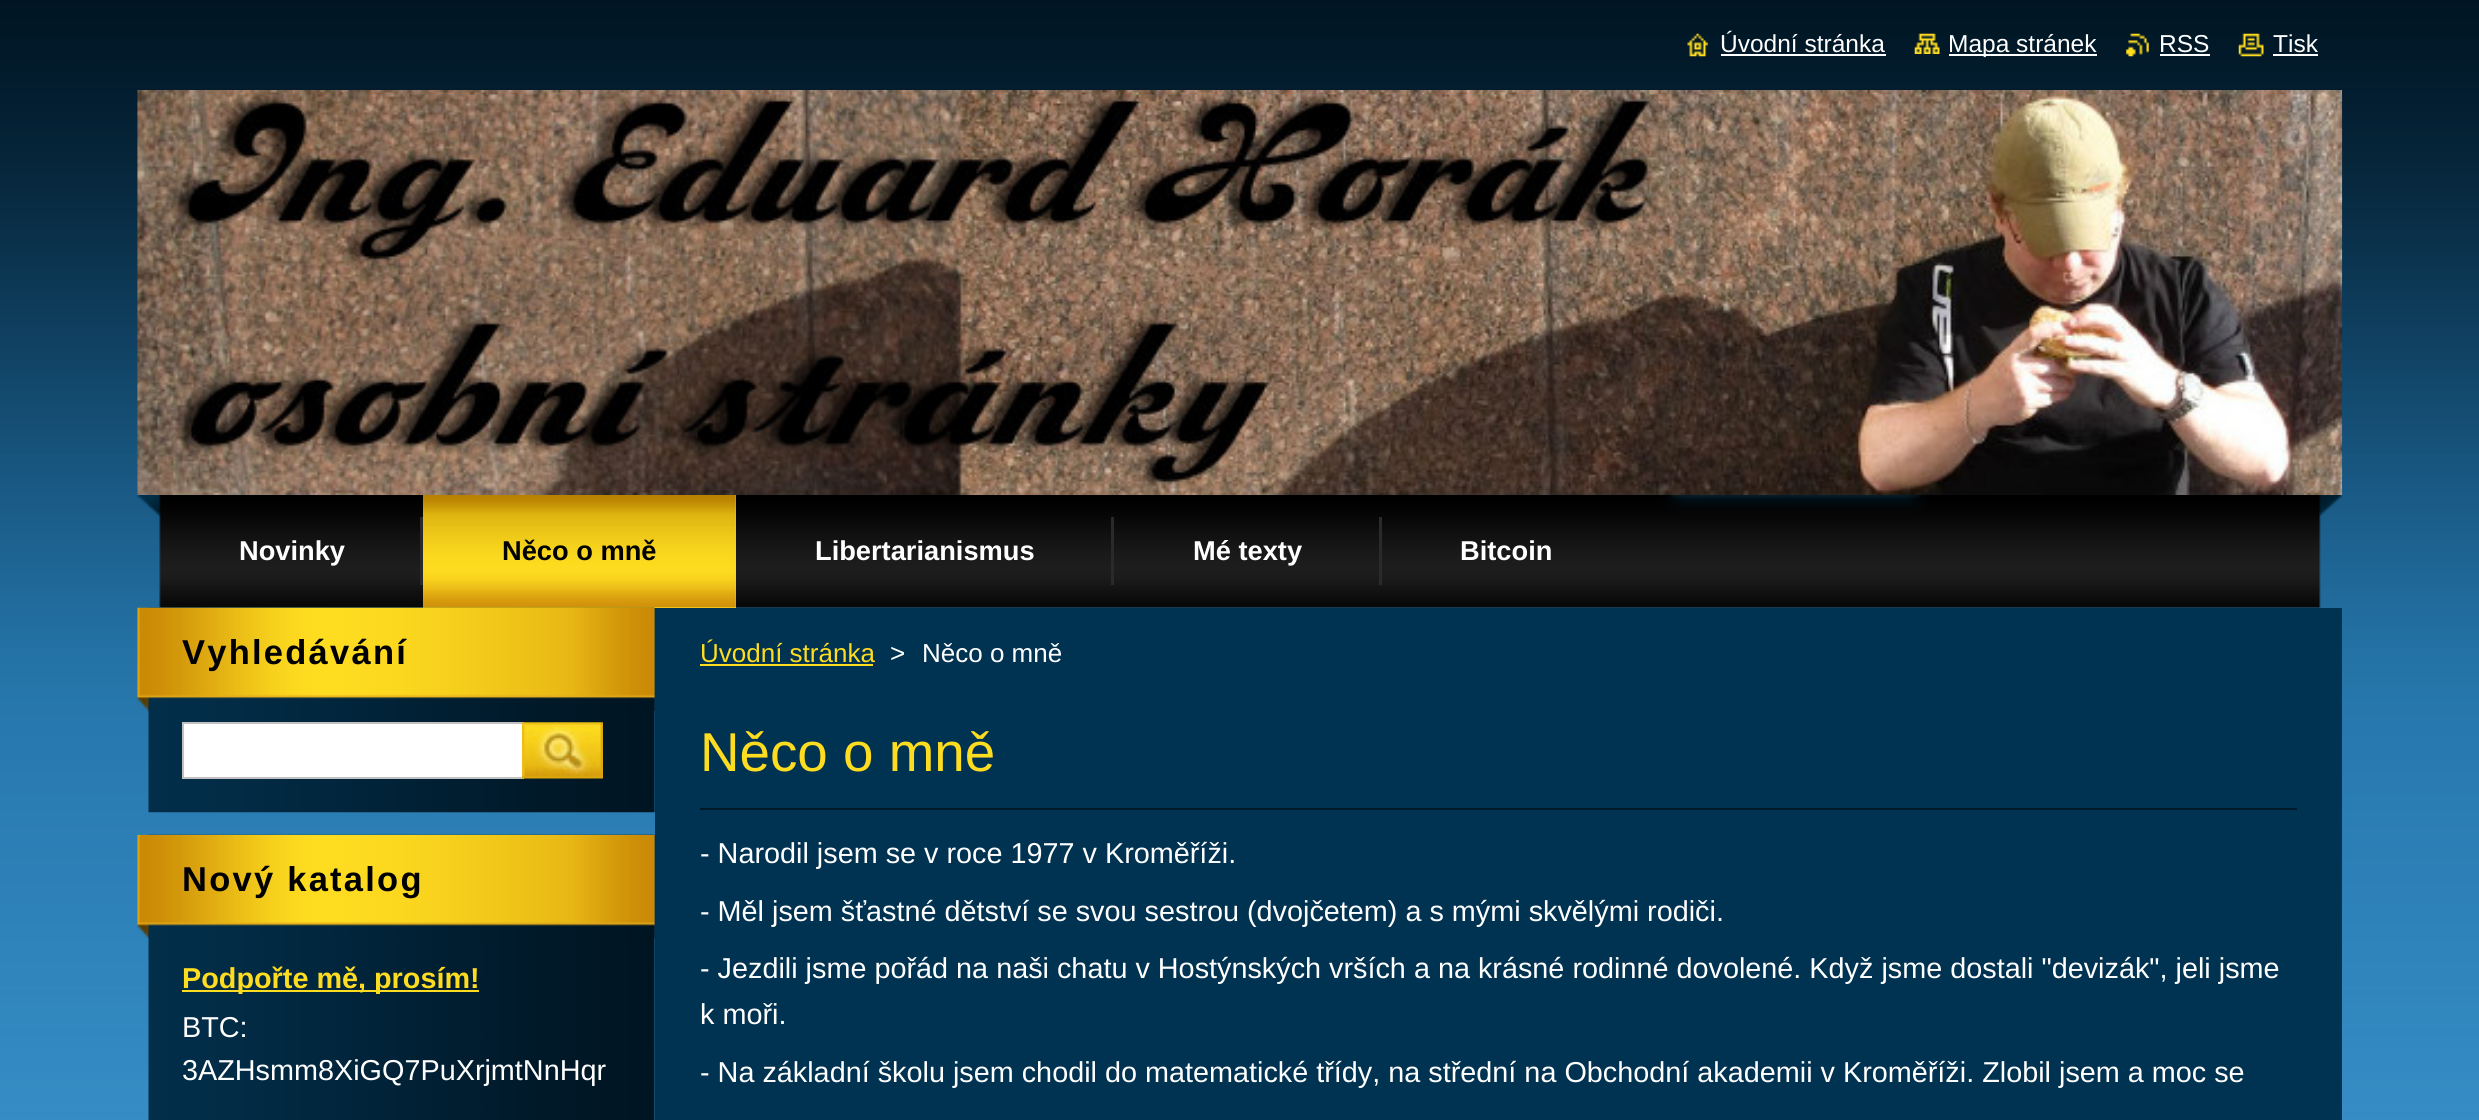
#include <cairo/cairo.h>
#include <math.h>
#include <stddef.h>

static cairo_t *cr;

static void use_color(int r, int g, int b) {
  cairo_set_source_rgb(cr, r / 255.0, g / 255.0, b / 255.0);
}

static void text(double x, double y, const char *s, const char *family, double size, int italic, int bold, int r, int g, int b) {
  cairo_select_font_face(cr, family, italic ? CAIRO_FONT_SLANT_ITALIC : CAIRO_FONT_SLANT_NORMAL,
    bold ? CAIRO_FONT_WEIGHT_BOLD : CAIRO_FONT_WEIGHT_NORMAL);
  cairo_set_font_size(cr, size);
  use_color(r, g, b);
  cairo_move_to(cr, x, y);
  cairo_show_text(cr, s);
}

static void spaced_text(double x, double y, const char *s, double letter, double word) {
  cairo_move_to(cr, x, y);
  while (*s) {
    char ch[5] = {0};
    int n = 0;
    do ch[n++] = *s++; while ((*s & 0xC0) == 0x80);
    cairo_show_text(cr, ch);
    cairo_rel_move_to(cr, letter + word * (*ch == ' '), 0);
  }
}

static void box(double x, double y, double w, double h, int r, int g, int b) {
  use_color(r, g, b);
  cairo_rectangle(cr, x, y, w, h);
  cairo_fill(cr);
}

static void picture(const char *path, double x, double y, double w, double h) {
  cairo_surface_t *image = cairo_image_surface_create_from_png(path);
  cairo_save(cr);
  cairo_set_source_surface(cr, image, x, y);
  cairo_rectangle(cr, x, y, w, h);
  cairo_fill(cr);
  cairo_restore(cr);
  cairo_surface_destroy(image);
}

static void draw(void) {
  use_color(255, 255, 255);
  cairo_paint(cr);
  picture("img_01.png", 0, 0, 2479, 1120);
  picture("img_02.png", 1687, 33, 21, 24);
  box(1721, 54, 165, 2, 255, 255, 255);
  picture("img_03.png", 1914, 33, 26, 21);
  box(1949, 54, 148, 2, 255, 255, 255);
  picture("img_04.png", 2126, 33, 23, 24);
  box(2160, 54, 50, 2, 255, 255, 255);
  picture("img_05.png", 2238, 33, 26, 24);
  box(2273, 54, 45, 2, 255, 255, 255);
  picture("img_06.png", 137, 90, 2206, 405);
  picture("img_07.png", 137, 495, 2206, 113);
  box(420, 517, 3, 68, 42, 42, 42);
  box(423, 495, 313, 113, 247, 212, 28);
  picture("img_08.png", 423, 495, 313, 113);
  box(1111, 517, 3, 68, 42, 42, 42);
  box(1379, 517, 3, 68, 42, 42, 42);
  picture("img_09.png", 148, 607, 507, 206);
  picture("img_10.png", 137, 607, 518, 104);
  use_color(255, 255, 255);
  cairo_rectangle(cr, 183, 723, 340, 55);
  cairo_fill_preserve(cr);
  use_color(193, 193, 193);
  cairo_stroke(cr);
  picture("img_11.png", 522, 722, 81, 57);
  picture("img_12.png", 148, 834, 507, 286);
  picture("img_13.png", 137, 834, 518, 105);
  box(182, 990, 297, 2, 254, 220, 32);
  box(655, 608, 1687, 512, 0, 50, 81);
  box(700, 664, 173, 2, 254, 220, 32);
  box(700, 808, 1597, 2, 0, 25, 41);
  text(1720, 52, "Úvodní stránka", "Liberation Sans", 24.5, 0, 0, 255, 255, 255);
  text(1948, 52, "Mapa stránek", "Liberation Sans", 24.5, 0, 0, 255, 255, 255);
  text(2159, 52, "RSS", "Liberation Sans", 24.5, 0, 0, 255, 255, 255);
  text(2273, 52, "Tisk", "Liberation Sans", 24.5, 0, 0, 255, 255, 255);
  text(239, 560, "Novinky", "Liberation Sans", 27.25, 0, 1, 255, 255, 255);
  text(502, 560, "Něco o mně", "Liberation Sans", 27.25, 0, 1, 0, 0, 0);
  text(815, 560, "Libertarianismus", "Liberation Sans", 27.25, 0, 1, 255, 255, 255);
  text(1193, 560, "Mé texty", "Liberation Sans", 27.25, 0, 1, 255, 255, 255);
  text(1460, 560, "Bitcoin", "Liberation Sans", 27.25, 0, 1, 255, 255, 255);
  cairo_set_font_size(cr, 34.5);
  use_color(0, 0, 0);
  spaced_text(182, 664, "Vyhledávání", 2.25, 0);
  spaced_text(182, 891, "Nový katalog", 2.25, 0);
  text(182, 988, "Podpořte mě, prosím!", "Liberation Sans", 28.8, 0, 1, 254, 220, 32);
  text(182, 1037, "BTC:", "Liberation Sans", 28.8, 0, 0, 255, 255, 255);
  text(182, 1080, "3AZHsmm8XiGQ7PuXrjmtNnHqr", "Liberation Sans", 28.8, 0, 0, 255, 255, 255);
  text(700, 662, "Úvodní stránka", "Liberation Sans", 26, 0, 0, 254, 220, 32);
  text(890, 662, ">", "Liberation Sans", 26, 0, 0, 255, 255, 255);
  text(922, 662, "Něco o mně", "Liberation Sans", 26, 0, 0, 255, 255, 255);
  text(700, 771, "Něco o mně", "Liberation Sans", 54.75, 0, 0, 254, 220, 32);
  text(700, 863, "- Narodil jsem se v roce 1977 v Kroměříži.", "Liberation Sans", 28.8, 0, 0, 255, 255, 255);
  text(700, 921, "- Měl jsem šťastné dětství se svou sestrou (dvojčetem) a s mými skvělými rodiči.", "Liberation Sans", 28.8, 0, 0, 255, 255, 255);
  text(700, 978, "- Jezdili jsme pořád na naši chatu v Hostýnských vrších a na krásné rodinné dovolené. Když jsme dostali \"devizák\", jeli jsme", "Liberation Sans", 28.8, 0, 0, 255, 255, 255);
  text(700, 1024, "k moři.", "Liberation Sans", 28.8, 0, 0, 255, 255, 255);
  text(700, 1082, "- Na základní školu jsem chodil do matematické třídy, na střední na Obchodní akademii v Kroměříži. Zlobil jsem a moc se", "Liberation Sans", 28.8, 0, 0, 255, 255, 255);
}

int main(void) {
  cairo_surface_t *surface = cairo_image_surface_create(CAIRO_FORMAT_RGB24, 2479, 1120);
  cr = cairo_create(surface);
  cairo_font_options_t *options = cairo_font_options_create();
  cairo_font_options_set_hint_metrics(options, CAIRO_HINT_METRICS_OFF);
  cairo_font_options_set_hint_style(options, CAIRO_HINT_STYLE_NONE);
  cairo_set_font_options(cr, options);
  cairo_set_miter_limit(cr, 4);
  draw();
  cairo_surface_write_to_png(surface, "out.png");
  cairo_font_options_destroy(options);
  cairo_destroy(cr);
  cairo_surface_destroy(surface);
  return 0;
}
